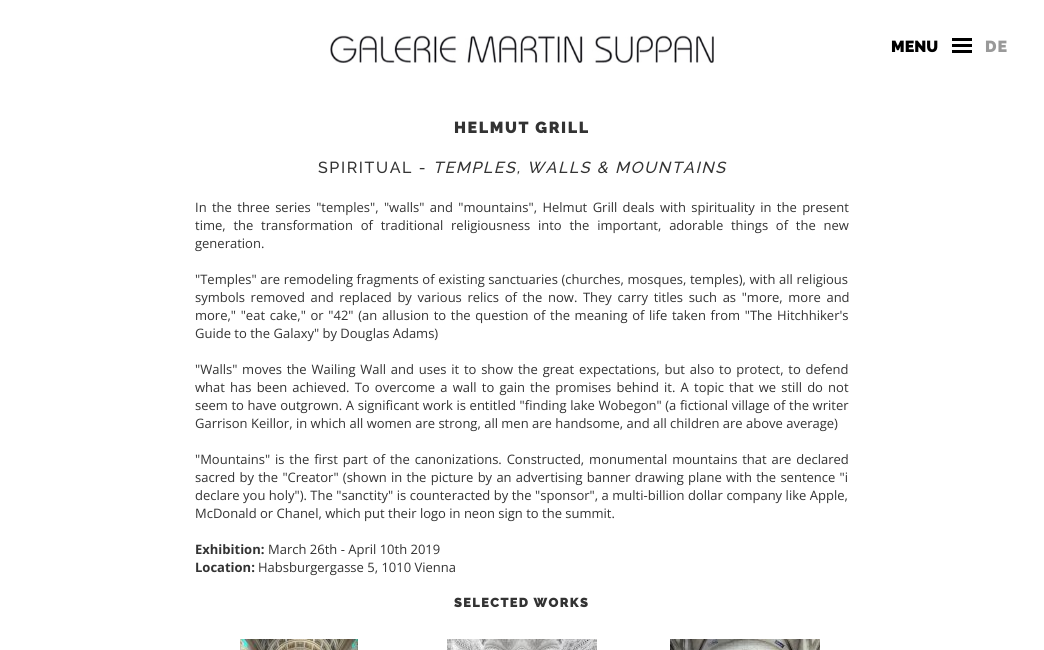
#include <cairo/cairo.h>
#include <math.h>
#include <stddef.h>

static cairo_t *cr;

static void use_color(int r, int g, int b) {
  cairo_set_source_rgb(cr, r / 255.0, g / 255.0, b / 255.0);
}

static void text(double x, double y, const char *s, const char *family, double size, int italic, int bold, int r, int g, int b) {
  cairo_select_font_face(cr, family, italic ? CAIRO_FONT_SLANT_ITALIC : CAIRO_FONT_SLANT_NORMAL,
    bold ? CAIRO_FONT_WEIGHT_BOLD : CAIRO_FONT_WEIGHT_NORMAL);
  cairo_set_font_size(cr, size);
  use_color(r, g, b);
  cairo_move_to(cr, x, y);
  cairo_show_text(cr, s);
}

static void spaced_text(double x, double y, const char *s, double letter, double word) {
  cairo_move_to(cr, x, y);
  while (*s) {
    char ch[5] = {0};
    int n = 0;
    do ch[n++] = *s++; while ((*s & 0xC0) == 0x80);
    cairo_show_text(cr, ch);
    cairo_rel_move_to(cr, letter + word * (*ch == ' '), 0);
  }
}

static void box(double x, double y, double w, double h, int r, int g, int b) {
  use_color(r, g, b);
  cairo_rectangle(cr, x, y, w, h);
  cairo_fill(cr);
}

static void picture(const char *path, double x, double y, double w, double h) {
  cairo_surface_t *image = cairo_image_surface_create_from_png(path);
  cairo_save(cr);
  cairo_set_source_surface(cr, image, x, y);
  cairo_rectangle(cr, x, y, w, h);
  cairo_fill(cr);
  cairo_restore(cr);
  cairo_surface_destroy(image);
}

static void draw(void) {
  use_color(255, 255, 255);
  cairo_paint(cr);
  picture("img_01.png", 330, 35, 384, 28);
  box(952, 44, 20, 3, 0, 0, 0);
  box(952, 38, 20, 3, 0, 0, 0);
  box(952, 50, 20, 3, 0, 0, 0);
  picture("img_02.png", 240, 639, 118, 11);
  picture("img_03.png", 447, 639, 150, 11);
  picture("img_04.png", 670, 639, 150, 11);
  text(891, 52, "MENU", "Raleway Black", 16, 0, 0, 0, 0, 0);
  use_color(153, 153, 153);
  spaced_text(985, 52, "DE", 1, 0);
  use_color(51, 51, 51);
  spaced_text(454, 133, "HELMUT GRILL", 1.6, 0);
  cairo_select_font_face(cr, "Raleway Medium", CAIRO_FONT_SLANT_NORMAL, CAIRO_FONT_WEIGHT_NORMAL);
  spaced_text(318, 173, "SPIRITUAL -", 1.6, 0);
  cairo_select_font_face(cr, "Raleway Medium", CAIRO_FONT_SLANT_ITALIC, CAIRO_FONT_WEIGHT_NORMAL);
  spaced_text(433, 173, "TEMPLES, WALLS & MOUNTAINS", 1.6, 0);
  cairo_select_font_face(cr, "Open Sans", CAIRO_FONT_SLANT_NORMAL, CAIRO_FONT_WEIGHT_NORMAL);
  cairo_set_font_size(cr, 13);
  spaced_text(195, 212, "In the three series \"temples\", \"walls\" and \"mountains\", Helmut Grill deals with spirituality in the present", 0, 2);
  spaced_text(195, 230, "time, the transformation of traditional religiousness into the important, adorable things of the new", 0, 4.4);
  text(195, 248, "generation.", "Open Sans", 13, 0, 0, 51, 51, 51);
  spaced_text(195, 284, "\"Temples\" are remodeling fragments of existing sanctuaries (churches, mosques, temples), with all religious", 0, 0.25);
  spaced_text(195, 302, "symbols removed and replaced by various relics of the now. They carry titles such as \"more, more and", 0, 2.25);
  spaced_text(195, 320, "more,\" \"eat cake,\" or \"42\" (an allusion to the question of the meaning of life taken from \"The Hitchhiker's", 0, 1.3);
  text(195, 338, "Guide to the Galaxy\" by Douglas Adams)", "Open Sans", 13, 0, 0, 51, 51, 51);
  spaced_text(195, 374, "\"Walls\" moves the Wailing Wall and uses it to show the great expectations, but also to protect, to defend", 0, 1.4);
  spaced_text(195, 392, "what has been achieved. To overcome a wall to gain the promises behind it. A topic that we still do not", 0, 1.8);
  spaced_text(195, 410, "seem to have outgrown. A significant work is entitled \"finding lake Wobegon\" (a fictional village of the writer", 0, 0.25);
  text(195, 428, "Garrison Keillor, in which all women are strong, all men are handsome, and all children are above average)", "Open Sans", 13, 0, 0, 51, 51, 51);
  spaced_text(195, 464, "\"Mountains\" is the first part of the canonizations. Constructed, monumental mountains that are declared", 0, 1.5);
  spaced_text(195, 482, "sacred by the \"Creator\" (shown in the picture by an advertising banner drawing plane with the sentence \"i", 0, 0.9);
  spaced_text(195, 500, "declare you holy\"). The \"sanctity\" is counteracted by the \"sponsor\", a multi-billion dollar company like Apple,", 0, 0.1);
  text(195, 518, "McDonald or Chanel, which put their logo in neon sign to the summit.", "Open Sans", 13, 0, 0, 51, 51, 51);
  text(195, 554, "Exhibition:", "Open Sans", 13, 0, 1, 51, 51, 51);
  text(268, 554, "March 26th - April 10th 2019", "Open Sans", 13, 0, 0, 51, 51, 51);
  text(195, 572, "Location:", "Open Sans", 13, 0, 1, 51, 51, 51);
  text(258, 572, "Habsburgergasse 5, 1010 Vienna", "Open Sans", 13, 0, 0, 51, 51, 51);
  cairo_select_font_face(cr, "Raleway Black", CAIRO_FONT_SLANT_NORMAL, CAIRO_FONT_WEIGHT_NORMAL);
  spaced_text(454, 607, "SELECTED WORKS", 1.25, 0);
}

int main(void) {
  cairo_surface_t *surface = cairo_image_surface_create(CAIRO_FORMAT_RGB24, 1044, 650);
  cr = cairo_create(surface);
  cairo_font_options_t *options = cairo_font_options_create();
  cairo_font_options_set_hint_metrics(options, CAIRO_HINT_METRICS_OFF);
  cairo_font_options_set_hint_style(options, CAIRO_HINT_STYLE_NONE);
  cairo_set_font_options(cr, options);
  cairo_set_miter_limit(cr, 4);
  draw();
  cairo_surface_write_to_png(surface, "out.png");
  cairo_font_options_destroy(options);
  cairo_destroy(cr);
  cairo_surface_destroy(surface);
  return 0;
}
